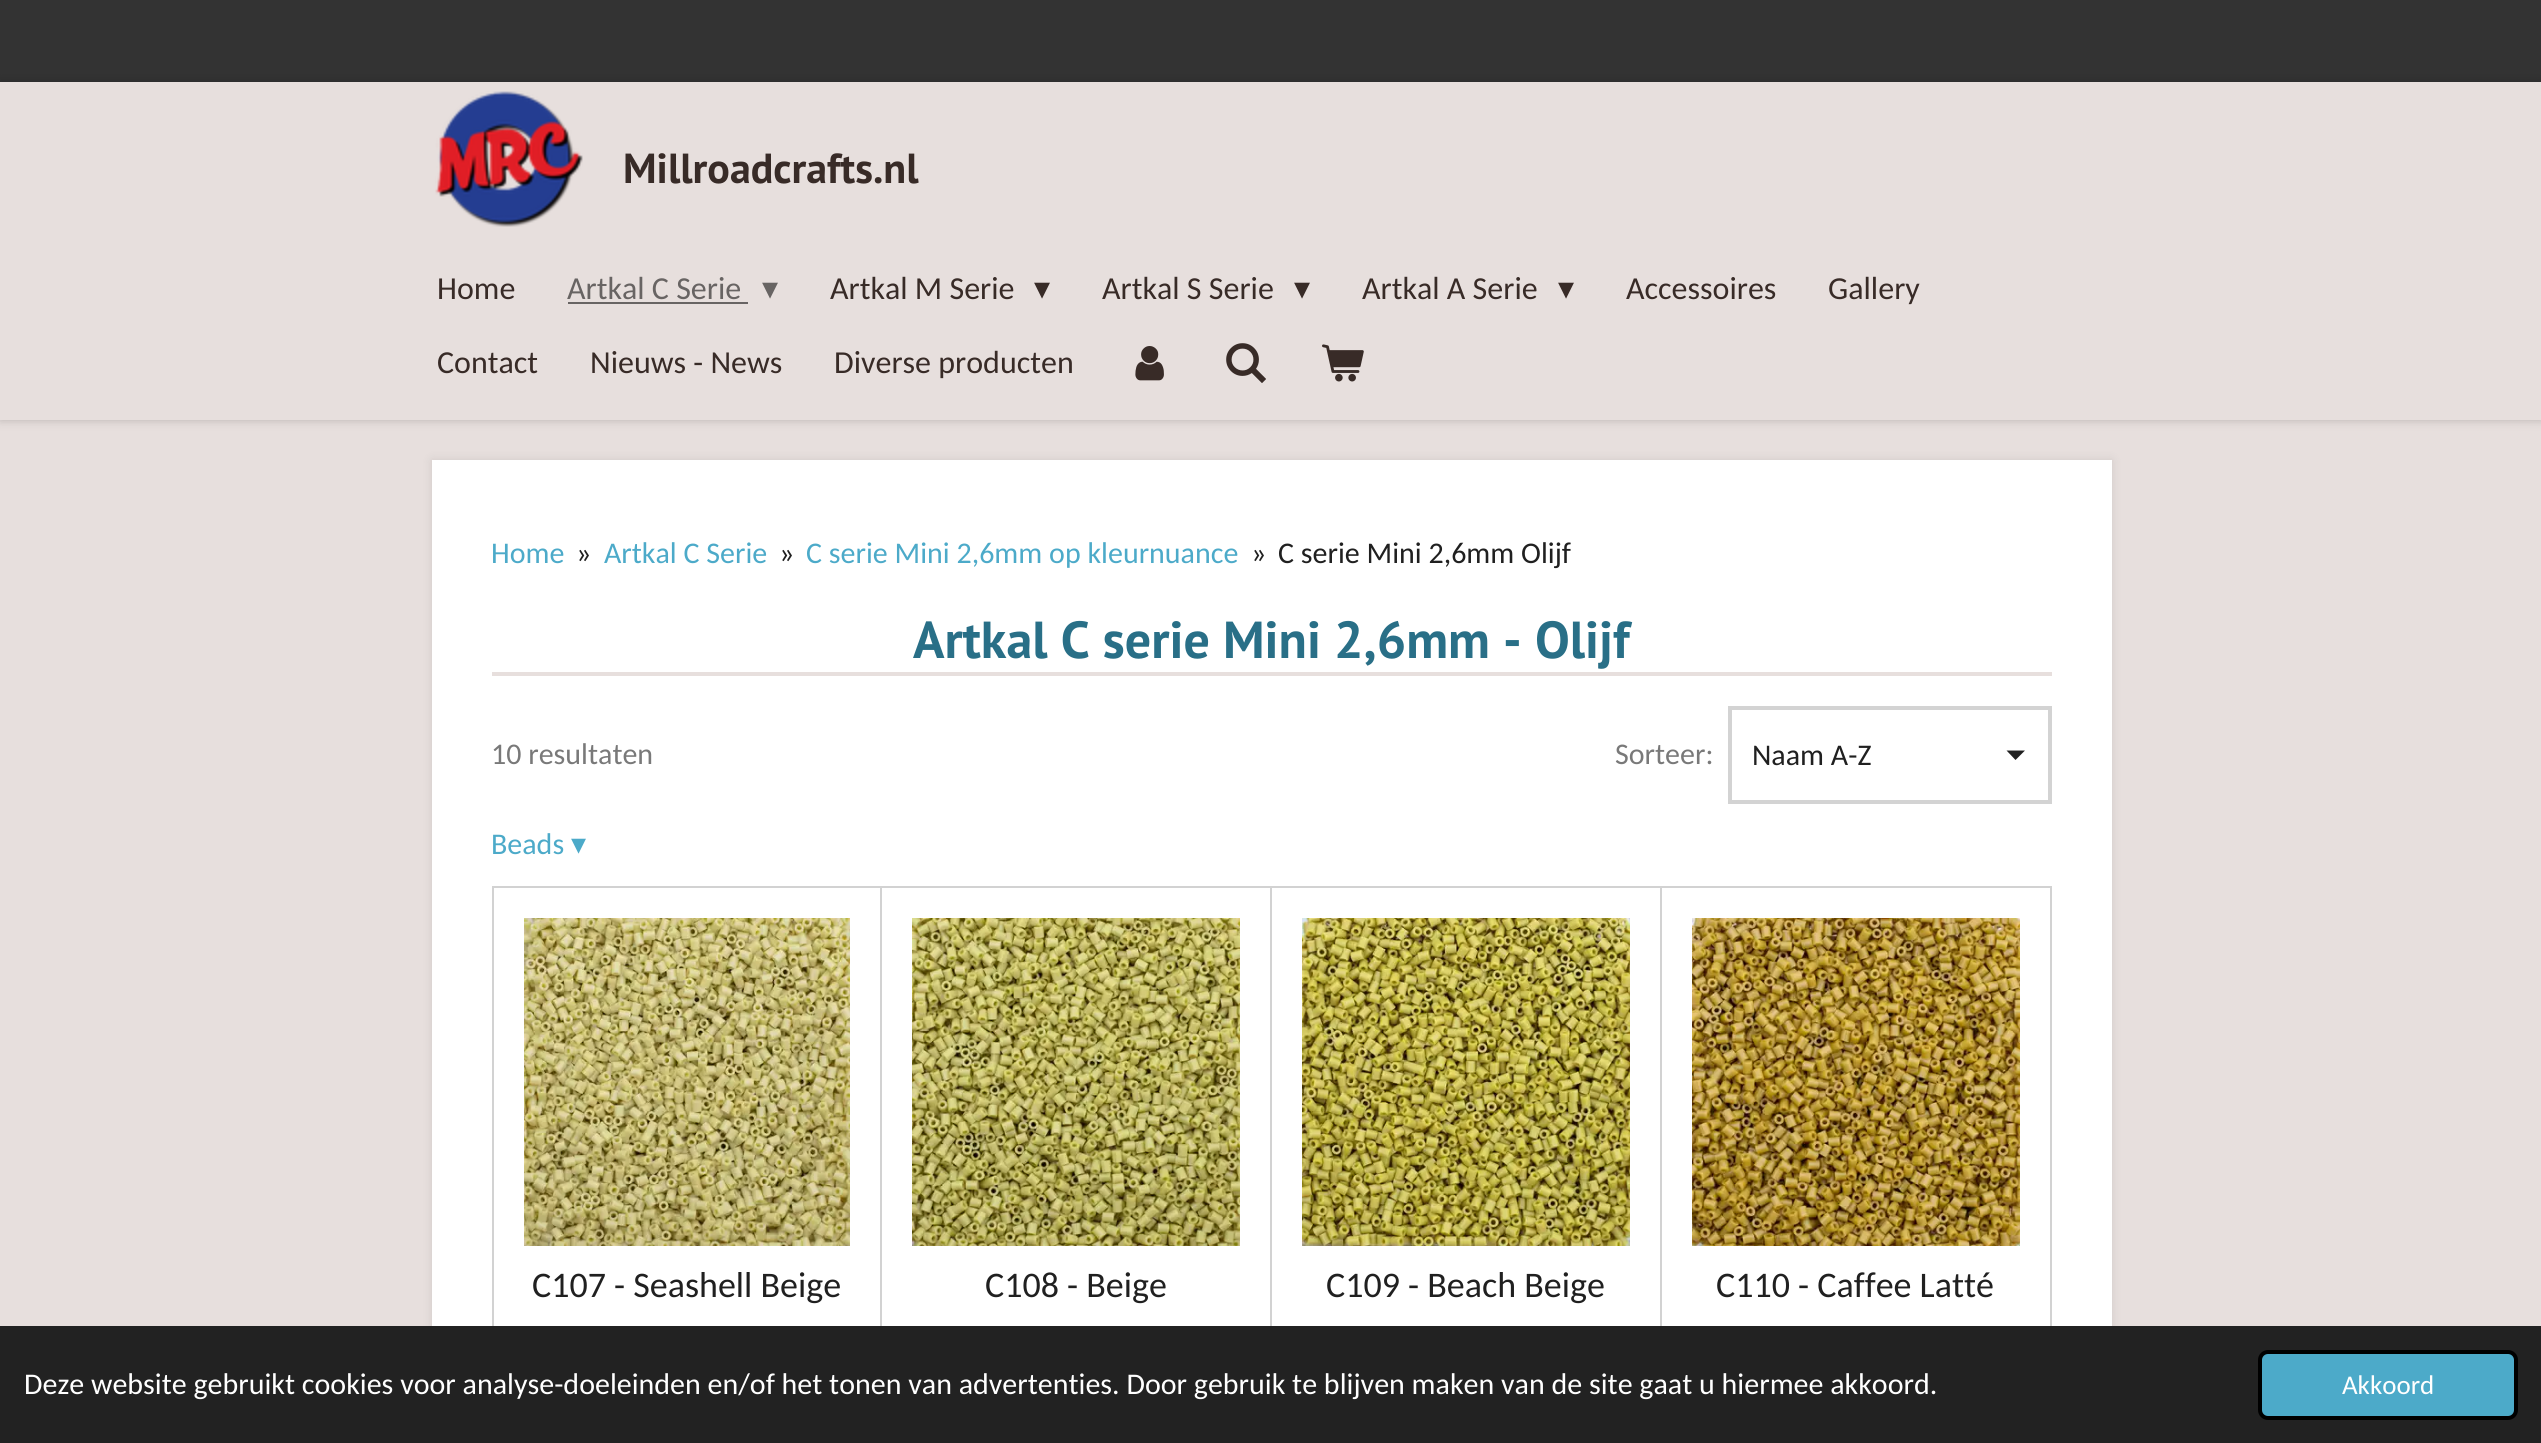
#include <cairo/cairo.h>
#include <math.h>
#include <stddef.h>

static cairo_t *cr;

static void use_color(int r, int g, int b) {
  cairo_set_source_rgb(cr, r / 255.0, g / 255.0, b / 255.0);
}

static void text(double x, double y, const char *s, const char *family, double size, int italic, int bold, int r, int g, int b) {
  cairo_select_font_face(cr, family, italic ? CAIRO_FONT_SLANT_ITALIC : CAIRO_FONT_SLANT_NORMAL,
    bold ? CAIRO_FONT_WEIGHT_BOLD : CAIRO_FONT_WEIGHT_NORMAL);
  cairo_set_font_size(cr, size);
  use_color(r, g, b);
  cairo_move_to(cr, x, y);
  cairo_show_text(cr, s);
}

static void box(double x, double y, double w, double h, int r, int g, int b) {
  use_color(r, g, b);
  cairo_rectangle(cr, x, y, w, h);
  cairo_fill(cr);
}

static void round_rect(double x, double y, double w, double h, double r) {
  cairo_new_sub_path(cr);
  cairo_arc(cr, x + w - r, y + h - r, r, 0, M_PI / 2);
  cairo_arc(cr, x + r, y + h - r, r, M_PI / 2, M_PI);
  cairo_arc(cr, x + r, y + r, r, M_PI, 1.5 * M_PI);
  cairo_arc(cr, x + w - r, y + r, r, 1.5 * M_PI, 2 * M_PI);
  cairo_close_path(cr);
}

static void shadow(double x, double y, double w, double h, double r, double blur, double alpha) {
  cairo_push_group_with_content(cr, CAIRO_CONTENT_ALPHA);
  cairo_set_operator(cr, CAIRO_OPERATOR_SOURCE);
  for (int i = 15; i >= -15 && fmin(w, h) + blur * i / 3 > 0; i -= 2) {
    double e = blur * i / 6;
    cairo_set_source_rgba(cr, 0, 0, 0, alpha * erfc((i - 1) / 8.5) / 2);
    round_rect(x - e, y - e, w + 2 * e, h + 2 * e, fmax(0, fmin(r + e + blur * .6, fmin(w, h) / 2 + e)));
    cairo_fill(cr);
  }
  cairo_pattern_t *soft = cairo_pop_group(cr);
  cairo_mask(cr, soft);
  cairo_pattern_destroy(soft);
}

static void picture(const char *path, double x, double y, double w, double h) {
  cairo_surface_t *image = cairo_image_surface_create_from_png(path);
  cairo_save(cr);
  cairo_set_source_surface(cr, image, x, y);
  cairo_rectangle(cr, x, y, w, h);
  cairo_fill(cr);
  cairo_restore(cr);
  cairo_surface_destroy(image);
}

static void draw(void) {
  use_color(231, 223, 221);
  cairo_paint(cr);
  box(0, 0, 2541, 82, 51, 51, 51);
  cairo_save(cr);
  cairo_set_fill_rule(cr, CAIRO_FILL_RULE_EVEN_ODD);
  cairo_new_path(cr);
  cairo_move_to(cr, 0, 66);
  cairo_line_to(cr, 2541, 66);
  cairo_line_to(cr, 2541, 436);
  cairo_line_to(cr, 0, 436);
  cairo_close_path(cr);
  cairo_move_to(cr, 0, 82);
  cairo_line_to(cr, 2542, 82);
  cairo_line_to(cr, 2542, 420);
  cairo_line_to(cr, 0, 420);
  cairo_close_path(cr);
  cairo_clip(cr);
  use_color(0, 0, 0);
  shadow(0, 82, 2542, 338, 0, 5, 0.2);
  cairo_restore(cr);
  picture("img_01.png", 435, 91, 148, 136);
  box(568, 302, 180, 2, 104, 100, 99);
  picture("img_02.png", 1135, 346, 29, 35);
  picture("img_03.png", 1226, 343, 40, 40);
  picture("img_04.png", 1322, 344, 42, 38);
  use_color(0, 0, 0);
  shadow(432, 460, 1680, 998, 0, 5, 0.1);
  box(432, 460, 1680, 866, 255, 255, 255);
  box(492, 672, 1560, 4, 231, 223, 221);
  use_color(32, 32, 32);
  cairo_new_path(cr);
  cairo_move_to(cr, 2015.5, 760);
  cairo_line_to(cr, 2006.5, 750.5);
  cairo_line_to(cr, 2025, 750.5);
  cairo_close_path(cr);
  cairo_fill(cr);
  cairo_rectangle(cr, 1730, 708, 320, 94);
  use_color(211, 211, 211);
  cairo_set_line_width(cr, 4);
  cairo_stroke(cr);
  cairo_rectangle(cr, 493, 887, 388, 504);
  use_color(210, 210, 210);
  cairo_set_line_width(cr, 2);
  cairo_stroke(cr);
  picture("img_05.png", 524, 918, 326, 328);
  cairo_rectangle(cr, 881, 887, 390, 504);
  cairo_stroke(cr);
  picture("img_06.png", 912, 918, 328, 328);
  cairo_rectangle(cr, 1271, 887, 390, 504);
  cairo_stroke(cr);
  picture("img_07.png", 1302, 918, 328, 328);
  cairo_rectangle(cr, 1661, 887, 390, 504);
  cairo_stroke(cr);
  picture("img_08.png", 1692, 918, 328, 328);
  box(0, 1326, 2541, 117, 34, 34, 34);
  use_color(76, 170, 201);
  round_rect(2260, 1352, 256, 66, 8);
  cairo_fill_preserve(cr);
  use_color(0, 0, 0);
  cairo_set_line_width(cr, 4);
  cairo_stroke(cr);
  text(623, 183, "Millroadcrafts.nl", "PT Sans", 42, 0, 1, 56, 43, 39);
  text(437, 299, "Home", "Carlito", 32, 0, 0, 56, 43, 39);
  text(567, 299, "Artkal C Serie", "Carlito", 32, 0, 0, 104, 100, 99);
  text(762, 299, "▾", "DejaVu Sans", 32, 0, 0, 104, 100, 99);
  text(830, 299, "Artkal M Serie", "Carlito", 32, 0, 0, 56, 43, 39);
  text(1034, 299, "▾", "DejaVu Sans", 32, 0, 0, 56, 43, 39);
  text(1102, 299, "Artkal S Serie", "Carlito", 32, 0, 0, 56, 43, 39);
  text(1294, 299, "▾", "DejaVu Sans", 32, 0, 0, 56, 43, 39);
  text(1362, 299, "Artkal A Serie", "Carlito", 32, 0, 0, 56, 43, 39);
  text(1558, 299, "▾", "DejaVu Sans", 32, 0, 0, 56, 43, 39);
  text(1626, 299, "Accessoires", "Carlito", 32, 0, 0, 56, 43, 39);
  text(1828, 299, "Gallery", "Carlito", 32, 0, 0, 56, 43, 39);
  text(437, 373, "Contact", "Carlito", 32, 0, 0, 56, 43, 39);
  text(590, 373, "Nieuws - News", "Carlito", 32, 0, 0, 56, 43, 39);
  text(834, 373, "Diverse producten", "Carlito", 32, 0, 0, 56, 43, 39);
  text(491, 563, "Home", "Carlito", 30, 0, 0, 76, 170, 201);
  text(576, 563, "»", "Carlito", 30, 0, 0, 32, 32, 32);
  text(604, 563, "Artkal C Serie", "Carlito", 30, 0, 0, 76, 170, 201);
  text(779, 563, "»", "Carlito", 30, 0, 0, 32, 32, 32);
  text(806, 563, "C serie Mini 2,6mm op kleurnuance", "Carlito", 30, 0, 0, 76, 170, 201);
  text(1251, 563, "»", "Carlito", 30, 0, 0, 32, 32, 32);
  text(1278, 563, "C serie Mini 2,6mm Olijf", "Carlito", 30, 0, 0, 32, 32, 32);
  text(913, 658, "Artkal C serie Mini 2,6mm - Olijf", "PT Sans", 52, 0, 1, 41, 111, 135);
  text(491, 764, "10 resultaten", "Carlito", 30, 0, 0, 121, 121, 121);
  text(1615, 764, "Sorteer:", "Carlito", 30, 0, 0, 121, 121, 121);
  text(1752, 765, "Naam A-Z", "Carlito", 30, 0, 0, 32, 32, 32);
  text(491, 854, "Beads", "Carlito", 30, 0, 0, 76, 170, 201);
  text(571, 854, "▾", "DejaVu Sans", 30, 0, 0, 76, 170, 201);
  text(532, 1297, "C107 - Seashell Beige", "Carlito", 36, 0, 0, 32, 32, 32);
  text(985, 1297, "C108 - Beige", "Carlito", 36, 0, 0, 32, 32, 32);
  text(1326, 1297, "C109 - Beach Beige", "Carlito", 36, 0, 0, 32, 32, 32);
  text(1716, 1297, "C110 - Caffee Latté", "Carlito", 36, 0, 0, 32, 32, 32);
  text(24, 1394, "Deze website gebruikt cookies voor analyse-doeleinden en/of het tonen van advertenties. Door gebruik te blijven maken van de site gaat u hiermee akkoord.", "Carlito", 30, 0, 0, 255, 255, 255);
  text(2342, 1394, "Akkoord", "Carlito", 27, 0, 0, 255, 255, 255);
}

int main(void) {
  cairo_surface_t *surface = cairo_image_surface_create(CAIRO_FORMAT_RGB24, 2541, 1443);
  cr = cairo_create(surface);
  cairo_font_options_t *options = cairo_font_options_create();
  cairo_font_options_set_hint_metrics(options, CAIRO_HINT_METRICS_OFF);
  cairo_font_options_set_hint_style(options, CAIRO_HINT_STYLE_NONE);
  cairo_set_font_options(cr, options);
  cairo_set_miter_limit(cr, 4);
  draw();
  cairo_surface_write_to_png(surface, "out.png");
  cairo_font_options_destroy(options);
  cairo_destroy(cr);
  cairo_surface_destroy(surface);
  return 0;
}
